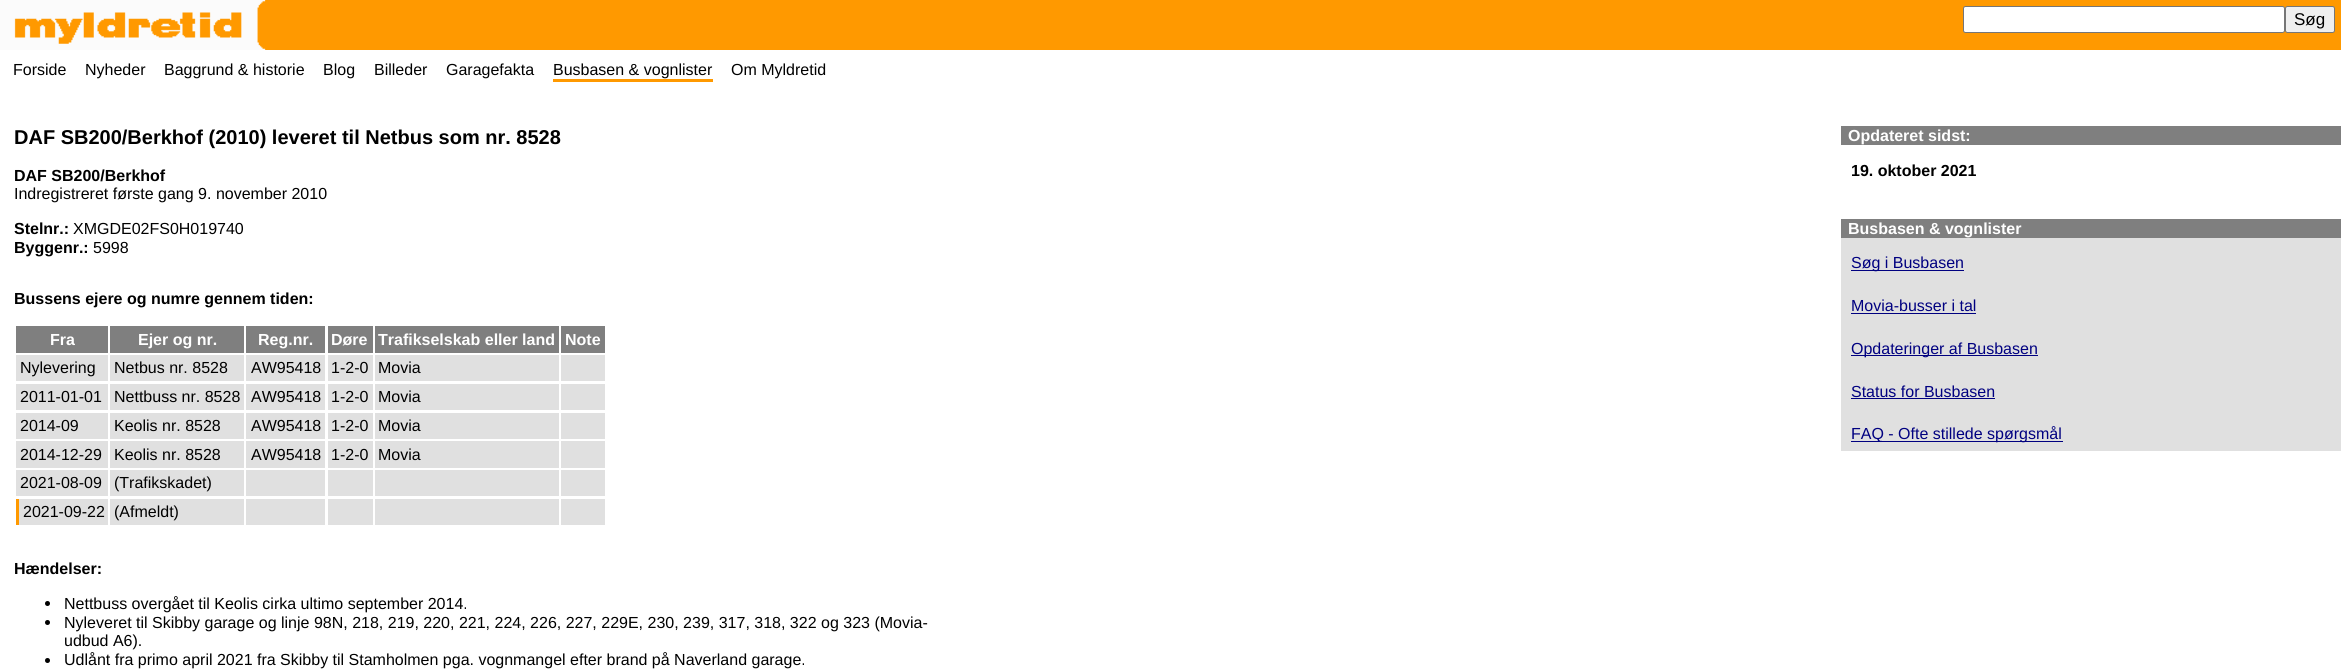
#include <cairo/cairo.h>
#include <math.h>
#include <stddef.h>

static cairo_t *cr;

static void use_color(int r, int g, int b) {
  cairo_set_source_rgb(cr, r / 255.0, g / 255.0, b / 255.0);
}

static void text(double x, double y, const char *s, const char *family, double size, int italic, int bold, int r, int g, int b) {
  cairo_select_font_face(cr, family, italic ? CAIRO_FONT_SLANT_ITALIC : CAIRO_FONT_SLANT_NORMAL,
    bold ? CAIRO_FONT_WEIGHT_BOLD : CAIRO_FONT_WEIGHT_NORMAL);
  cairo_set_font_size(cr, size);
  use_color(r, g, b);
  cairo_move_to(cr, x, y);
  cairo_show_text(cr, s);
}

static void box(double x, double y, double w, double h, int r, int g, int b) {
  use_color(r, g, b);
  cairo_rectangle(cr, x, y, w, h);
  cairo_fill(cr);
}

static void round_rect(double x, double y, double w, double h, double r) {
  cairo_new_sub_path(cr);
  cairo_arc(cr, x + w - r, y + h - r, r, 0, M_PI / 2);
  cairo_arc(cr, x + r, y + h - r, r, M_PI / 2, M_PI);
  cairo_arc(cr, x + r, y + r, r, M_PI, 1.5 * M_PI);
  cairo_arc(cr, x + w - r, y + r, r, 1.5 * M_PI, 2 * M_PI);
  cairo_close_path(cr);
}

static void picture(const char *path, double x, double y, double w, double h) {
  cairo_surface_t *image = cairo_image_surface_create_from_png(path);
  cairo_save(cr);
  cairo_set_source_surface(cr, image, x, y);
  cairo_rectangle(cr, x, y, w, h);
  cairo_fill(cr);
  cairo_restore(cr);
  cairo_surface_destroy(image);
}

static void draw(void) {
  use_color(255, 255, 255);
  cairo_paint(cr);
  box(14, 0, 2327, 50, 255, 153, 0);
  picture("img_01.png", 0, 0, 266, 50);
  use_color(255, 255, 255);
  round_rect(1963.5, 6.5, 321, 26, 2);
  cairo_fill_preserve(cr);
  use_color(118, 118, 118);
  cairo_set_line_width(cr, 1);
  cairo_stroke(cr);
  use_color(239, 239, 239);
  round_rect(2285.5, 6.5, 49, 26, 2);
  cairo_fill_preserve(cr);
  use_color(118, 118, 118);
  cairo_stroke(cr);
  box(553, 79, 160, 3, 255, 153, 0);
  box(16, 326, 92, 27, 127, 127, 127);
  box(110, 326, 134, 27, 127, 127, 127);
  box(246, 326, 79, 27, 127, 127, 127);
  box(328, 326, 45, 27, 127, 127, 127);
  box(375, 326, 184, 27, 127, 127, 127);
  box(561, 326, 44, 27, 127, 127, 127);
  box(16, 355, 92, 26, 224, 224, 224);
  box(110, 355, 134, 26, 224, 224, 224);
  box(246, 355, 79, 26, 224, 224, 224);
  box(328, 355, 45, 26, 224, 224, 224);
  box(375, 355, 184, 26, 224, 224, 224);
  box(561, 355, 44, 26, 224, 224, 224);
  box(16, 384, 92, 26, 224, 224, 224);
  box(110, 384, 134, 26, 224, 224, 224);
  box(246, 384, 79, 26, 224, 224, 224);
  box(328, 384, 45, 26, 224, 224, 224);
  box(375, 384, 184, 26, 224, 224, 224);
  box(561, 384, 44, 26, 224, 224, 224);
  box(16, 413, 92, 26, 224, 224, 224);
  box(110, 413, 134, 26, 224, 224, 224);
  box(246, 413, 79, 26, 224, 224, 224);
  box(328, 413, 45, 26, 224, 224, 224);
  box(375, 413, 184, 26, 224, 224, 224);
  box(561, 413, 44, 26, 224, 224, 224);
  box(16, 441, 92, 27, 224, 224, 224);
  box(110, 441, 134, 27, 224, 224, 224);
  box(246, 441, 79, 27, 224, 224, 224);
  box(328, 441, 45, 27, 224, 224, 224);
  box(375, 441, 184, 27, 224, 224, 224);
  box(561, 441, 44, 27, 224, 224, 224);
  box(16, 470, 92, 26, 224, 224, 224);
  box(110, 470, 134, 26, 224, 224, 224);
  box(246, 470, 79, 26, 224, 224, 224);
  box(328, 470, 45, 26, 224, 224, 224);
  box(375, 470, 184, 26, 224, 224, 224);
  box(561, 470, 44, 26, 224, 224, 224);
  box(19, 499, 89, 26, 224, 224, 224);
  box(16, 499, 3, 26, 255, 153, 0);
  box(110, 499, 134, 26, 224, 224, 224);
  box(246, 499, 79, 26, 224, 224, 224);
  box(328, 499, 45, 26, 224, 224, 224);
  box(375, 499, 184, 26, 224, 224, 224);
  box(561, 499, 44, 26, 224, 224, 224);
  use_color(0, 0, 0);
  cairo_arc(cr, 47.5, 603.5, 2.5, 0, 2 * M_PI);
  cairo_fill(cr);
  cairo_arc(cr, 47.5, 622.5, 2.5, 0, 2 * M_PI);
  cairo_fill(cr);
  cairo_arc(cr, 47.5, 660.5, 2.5, 0, 2 * M_PI);
  cairo_fill(cr);
  box(1841, 126, 500, 19, 127, 127, 127);
  box(1841, 238, 500, 213, 224, 224, 224);
  box(1841, 219, 500, 19, 127, 127, 127);
  box(1851, 270, 113, 1, 0, 0, 128);
  box(1851, 313, 125, 1, 0, 0, 128);
  box(1851, 355, 187, 1, 0, 0, 128);
  box(1851, 398, 144, 1, 0, 0, 128);
  box(1851, 441, 212, 1, 0, 0, 128);
  text(2294, 25, "Søg", "Liberation Sans", 17, 0, 0, 0, 0, 0);
  text(13, 75, "Forside", "Liberation Sans", 16, 0, 0, 0, 0, 0);
  text(85, 75, "Nyheder", "Liberation Sans", 16, 0, 0, 0, 0, 0);
  text(164, 75, "Baggrund & historie", "Liberation Sans", 16, 0, 0, 0, 0, 0);
  text(323, 75, "Blog", "Liberation Sans", 16, 0, 0, 0, 0, 0);
  text(374, 75, "Billeder", "Liberation Sans", 16, 0, 0, 0, 0, 0);
  text(446, 75, "Garagefakta", "Liberation Sans", 16, 0, 0, 0, 0, 0);
  text(553, 75, "Busbasen & vognlister", "Liberation Sans", 16, 0, 0, 0, 0, 0);
  text(731, 75, "Om Myldretid", "Liberation Sans", 16, 0, 0, 0, 0, 0);
  text(14, 144, "DAF SB200/Berkhof (2010) leveret til Netbus som nr. 8528", "Liberation Sans", 20, 0, 1, 0, 0, 0);
  text(14, 181, "DAF SB200/Berkhof", "Liberation Sans", 16, 0, 1, 0, 0, 0);
  text(14, 199, "Indregistreret første gang 9. november 2010", "Liberation Sans", 16, 0, 0, 0, 0, 0);
  text(14, 234, "Stelnr.:", "Liberation Sans", 16, 0, 1, 0, 0, 0);
  text(73, 234, "XMGDE02FS0H019740", "Liberation Sans", 16, 0, 0, 0, 0, 0);
  text(14, 253, "Byggenr.:", "Liberation Sans", 16, 0, 1, 0, 0, 0);
  text(93, 253, "5998", "Liberation Sans", 16, 0, 0, 0, 0, 0);
  text(14, 304, "Bussens ejere og numre gennem tiden:", "Liberation Sans", 16, 0, 1, 0, 0, 0);
  text(50, 345, "Fra", "Liberation Sans", 16, 0, 1, 255, 255, 255);
  text(138, 345, "Ejer og nr.", "Liberation Sans", 16, 0, 1, 255, 255, 255);
  text(258, 345, "Reg.nr.", "Liberation Sans", 16, 0, 1, 255, 255, 255);
  text(331, 345, "Døre", "Liberation Sans", 16, 0, 1, 255, 255, 255);
  text(378, 345, "Trafikselskab eller land", "Liberation Sans", 16, 0, 1, 255, 255, 255);
  text(565, 345, "Note", "Liberation Sans", 16, 0, 1, 255, 255, 255);
  text(20, 373, "Nylevering", "Liberation Sans", 16, 0, 0, 0, 0, 0);
  text(114, 373, "Netbus nr. 8528", "Liberation Sans", 16, 0, 0, 0, 0, 0);
  text(251, 373, "AW95418", "Liberation Sans", 16, 0, 0, 0, 0, 0);
  text(331, 373, "1-2-0", "Liberation Sans", 16, 0, 0, 0, 0, 0);
  text(378, 373, "Movia", "Liberation Sans", 16, 0, 0, 0, 0, 0);
  text(20, 402, "2011-01-01", "Liberation Sans", 16, 0, 0, 0, 0, 0);
  text(114, 402, "Nettbuss nr. 8528", "Liberation Sans", 16, 0, 0, 0, 0, 0);
  text(251, 402, "AW95418", "Liberation Sans", 16, 0, 0, 0, 0, 0);
  text(331, 402, "1-2-0", "Liberation Sans", 16, 0, 0, 0, 0, 0);
  text(378, 402, "Movia", "Liberation Sans", 16, 0, 0, 0, 0, 0);
  text(20, 431, "2014-09", "Liberation Sans", 16, 0, 0, 0, 0, 0);
  text(114, 431, "Keolis nr. 8528", "Liberation Sans", 16, 0, 0, 0, 0, 0);
  text(251, 431, "AW95418", "Liberation Sans", 16, 0, 0, 0, 0, 0);
  text(331, 431, "1-2-0", "Liberation Sans", 16, 0, 0, 0, 0, 0);
  text(378, 431, "Movia", "Liberation Sans", 16, 0, 0, 0, 0, 0);
  text(20, 460, "2014-12-29", "Liberation Sans", 16, 0, 0, 0, 0, 0);
  text(114, 460, "Keolis nr. 8528", "Liberation Sans", 16, 0, 0, 0, 0, 0);
  text(251, 460, "AW95418", "Liberation Sans", 16, 0, 0, 0, 0, 0);
  text(331, 460, "1-2-0", "Liberation Sans", 16, 0, 0, 0, 0, 0);
  text(378, 460, "Movia", "Liberation Sans", 16, 0, 0, 0, 0, 0);
  text(20, 488, "2021-08-09", "Liberation Sans", 16, 0, 0, 0, 0, 0);
  text(114, 488, "(Trafikskadet)", "Liberation Sans", 16, 0, 0, 0, 0, 0);
  text(23, 517, "2021-09-22", "Liberation Sans", 16, 0, 0, 0, 0, 0);
  text(114, 517, "(Afmeldt)", "Liberation Sans", 16, 0, 0, 0, 0, 0);
  text(14, 574, "Hændelser:", "Liberation Sans", 16, 0, 1, 0, 0, 0);
  text(64, 609, "Nettbuss overgået til Keolis cirka ultimo september 2014.", "Liberation Sans", 16, 0, 0, 0, 0, 0);
  text(64, 628, "Nyleveret til Skibby garage og linje 98N, 218, 219, 220, 221, 224, 226, 227, 229E, 230, 239, 317, 318, 322 og 323 (Movia-", "Liberation Sans", 16, 0, 0, 0, 0, 0);
  text(64, 646, "udbud A6).", "Liberation Sans", 16, 0, 0, 0, 0, 0);
  text(64, 665, "Udlånt fra primo april 2021 fra Skibby til Stamholmen pga. vognmangel efter brand på Naverland garage.", "Liberation Sans", 16, 0, 0, 0, 0, 0);
  text(1848, 141, "Opdateret sidst:", "Liberation Sans", 16, 0, 1, 255, 255, 255);
  text(1851, 176, "19. oktober 2021", "Liberation Sans", 16, 0, 1, 0, 0, 0);
  text(1848, 234, "Busbasen & vognlister", "Liberation Sans", 16, 0, 1, 255, 255, 255);
  text(1851, 268, "Søg i Busbasen", "Liberation Sans", 16, 0, 0, 0, 0, 128);
  text(1851, 311, "Movia-busser i tal", "Liberation Sans", 16, 0, 0, 0, 0, 128);
  text(1851, 354, "Opdateringer af Busbasen", "Liberation Sans", 16, 0, 0, 0, 0, 128);
  text(1851, 397, "Status for Busbasen", "Liberation Sans", 16, 0, 0, 0, 0, 128);
  text(1851, 439, "FAQ - Ofte stillede spørgsmål", "Liberation Sans", 16, 0, 0, 0, 0, 128);
}

int main(void) {
  cairo_surface_t *surface = cairo_image_surface_create(CAIRO_FORMAT_RGB24, 2341, 671);
  cr = cairo_create(surface);
  cairo_font_options_t *options = cairo_font_options_create();
  cairo_font_options_set_hint_metrics(options, CAIRO_HINT_METRICS_OFF);
  cairo_font_options_set_hint_style(options, CAIRO_HINT_STYLE_NONE);
  cairo_set_font_options(cr, options);
  cairo_set_miter_limit(cr, 4);
  draw();
  cairo_surface_write_to_png(surface, "out.png");
  cairo_font_options_destroy(options);
  cairo_destroy(cr);
  cairo_surface_destroy(surface);
  return 0;
}
